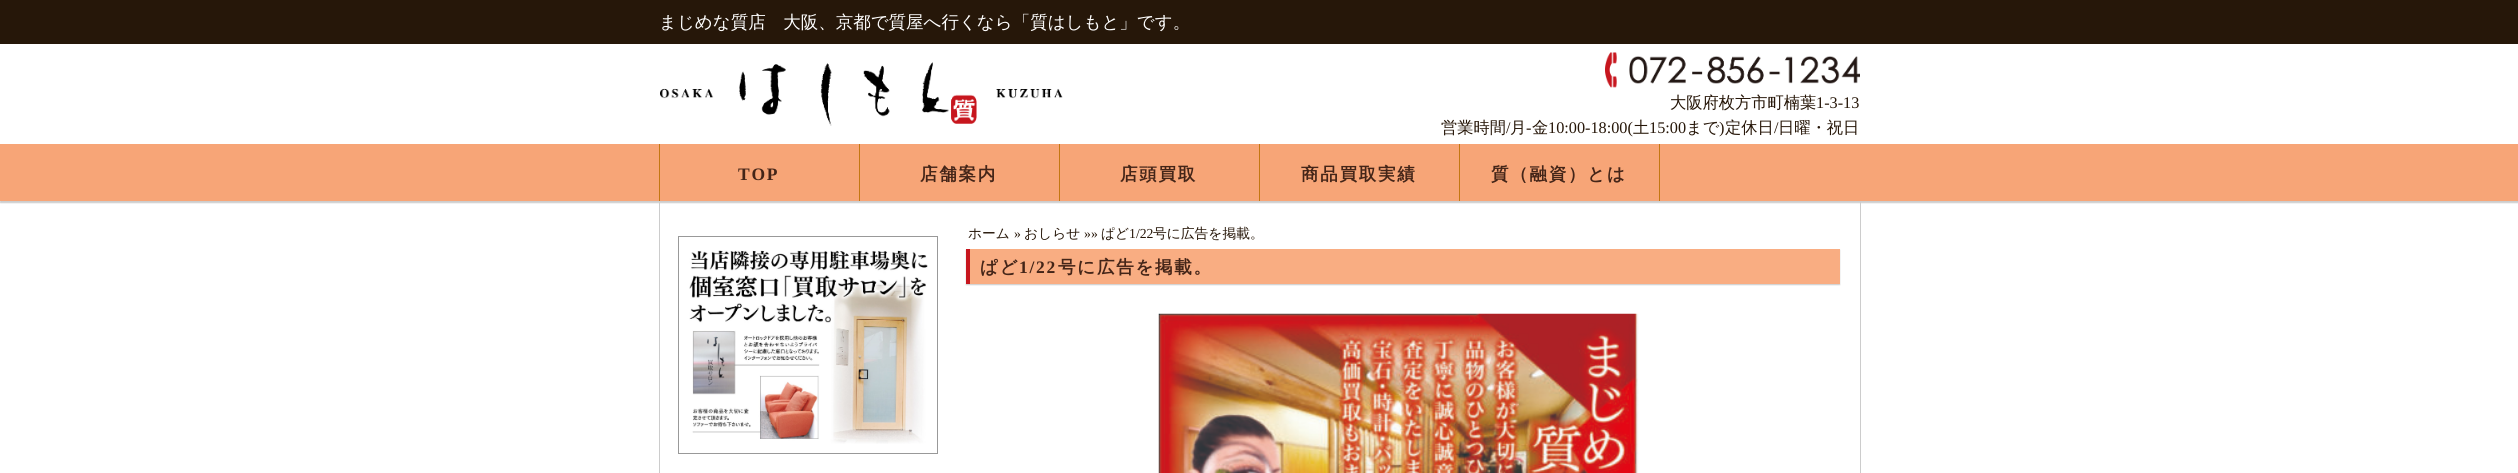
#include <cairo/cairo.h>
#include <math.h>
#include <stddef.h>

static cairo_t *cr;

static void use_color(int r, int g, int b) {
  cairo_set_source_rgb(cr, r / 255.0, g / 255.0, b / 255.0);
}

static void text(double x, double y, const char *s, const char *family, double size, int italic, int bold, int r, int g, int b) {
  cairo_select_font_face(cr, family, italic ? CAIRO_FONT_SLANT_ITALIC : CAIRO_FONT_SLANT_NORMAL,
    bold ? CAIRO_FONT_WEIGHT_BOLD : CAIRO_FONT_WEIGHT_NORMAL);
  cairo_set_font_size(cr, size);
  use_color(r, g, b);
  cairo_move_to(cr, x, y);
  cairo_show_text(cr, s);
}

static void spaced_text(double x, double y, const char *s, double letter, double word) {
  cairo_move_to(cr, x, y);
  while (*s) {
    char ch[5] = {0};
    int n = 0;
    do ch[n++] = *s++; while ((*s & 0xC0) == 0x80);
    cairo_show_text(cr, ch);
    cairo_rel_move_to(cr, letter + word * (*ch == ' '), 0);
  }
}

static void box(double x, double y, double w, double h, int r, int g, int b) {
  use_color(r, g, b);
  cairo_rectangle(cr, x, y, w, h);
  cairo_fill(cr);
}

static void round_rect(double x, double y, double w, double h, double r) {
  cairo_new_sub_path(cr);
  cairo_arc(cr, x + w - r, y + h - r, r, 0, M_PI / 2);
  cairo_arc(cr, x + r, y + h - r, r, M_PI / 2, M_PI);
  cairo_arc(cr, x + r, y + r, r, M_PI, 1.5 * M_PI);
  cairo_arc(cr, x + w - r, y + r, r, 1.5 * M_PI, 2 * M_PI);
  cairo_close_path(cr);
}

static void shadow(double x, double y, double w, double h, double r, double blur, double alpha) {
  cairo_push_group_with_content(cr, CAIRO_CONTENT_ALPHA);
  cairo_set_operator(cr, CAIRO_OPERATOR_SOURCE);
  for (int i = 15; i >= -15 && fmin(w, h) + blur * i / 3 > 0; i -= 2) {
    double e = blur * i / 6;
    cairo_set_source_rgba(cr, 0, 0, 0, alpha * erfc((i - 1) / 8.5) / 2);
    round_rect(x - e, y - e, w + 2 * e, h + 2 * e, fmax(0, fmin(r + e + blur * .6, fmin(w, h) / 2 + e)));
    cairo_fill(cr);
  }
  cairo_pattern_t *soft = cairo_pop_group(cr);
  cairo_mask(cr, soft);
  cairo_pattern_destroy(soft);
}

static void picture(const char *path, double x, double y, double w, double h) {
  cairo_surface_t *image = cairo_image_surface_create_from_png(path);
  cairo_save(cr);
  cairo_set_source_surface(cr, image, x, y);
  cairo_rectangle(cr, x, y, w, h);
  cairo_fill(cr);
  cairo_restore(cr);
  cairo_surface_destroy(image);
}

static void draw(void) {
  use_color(255, 255, 255);
  cairo_paint(cr);
  box(0, 0, 2518, 44, 38, 23, 9);
  picture("img_01.png", 660, 62, 403, 64);
  picture("img_02.png", 1605, 52, 255, 36);
  use_color(0, 0, 0);
  shadow(0, 145, 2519, 58, 0, 0.5, 0.2);
  box(0, 144, 2518, 57, 247, 165, 119);
  box(859, 144, 1, 57, 196, 119, 18);
  box(659, 144, 1, 57, 196, 119, 18);
  box(1059, 144, 1, 57, 196, 119, 18);
  box(1259, 144, 1, 57, 196, 119, 18);
  box(1459, 144, 1, 57, 196, 119, 18);
  box(1659, 144, 1, 57, 196, 119, 18);
  box(1860, 201, 1, 272, 204, 204, 204);
  box(659, 201, 1, 272, 204, 204, 204);
  cairo_rectangle(cr, 678.5, 236.5, 259, 217);
  use_color(153, 153, 153);
  cairo_set_line_width(cr, 1);
  cairo_stroke(cr);
  picture("img_03.png", 689, 250, 239, 194);
  use_color(0, 0, 0);
  shadow(966, 250, 874, 35, 0, 0.5, 0.2);
  box(970, 249, 870, 35, 249, 173, 130);
  box(966, 249, 4, 35, 199, 22, 30);
  picture("img_04.png", 1158, 313, 481, 160);
  text(659, 28, "まじめな質店　大阪、京都で質屋へ行くなら「質はしもと」です。", "WenQuanYi Zen Hei Medium", 17.5, 0, 0, 255, 255, 255);
  text(1670, 108, "大阪府枚方市町楠葉", "WenQuanYi Zen Hei Medium", 16.25, 0, 0, 38, 22, 8);
  text(1816, 108, "1-3-13", "Liberation Serif", 16.25, 0, 0, 38, 22, 8);
  text(1441, 133, "営業時間", "WenQuanYi Zen Hei Medium", 16.25, 0, 0, 38, 22, 8);
  text(1506, 133, "/", "Liberation Serif", 16.25, 0, 0, 38, 22, 8);
  text(1510, 133, "月", "WenQuanYi Zen Hei Medium", 16.25, 0, 0, 38, 22, 8);
  text(1526, 133, "-", "Liberation Serif", 16.25, 0, 0, 38, 22, 8);
  text(1532, 133, "金", "WenQuanYi Zen Hei Medium", 16.25, 0, 0, 38, 22, 8);
  text(1548, 133, "10:00-18:00(", "Liberation Serif", 16.25, 0, 0, 38, 22, 8);
  text(1633, 133, "土", "WenQuanYi Zen Hei Medium", 16.25, 0, 0, 38, 22, 8);
  text(1649, 133, "15:00", "Liberation Serif", 16.25, 0, 0, 38, 22, 8);
  text(1686, 133, "まで", "WenQuanYi Zen Hei Medium", 16.25, 0, 0, 38, 22, 8);
  text(1719, 133, ")", "Liberation Serif", 16.25, 0, 0, 38, 22, 8);
  text(1725, 133, "定休日", "WenQuanYi Zen Hei Medium", 16.25, 0, 0, 38, 22, 8);
  text(1774, 133, "/", "Liberation Serif", 16.25, 0, 0, 38, 22, 8);
  text(1778, 133, "日曜・祝日", "WenQuanYi Zen Hei Medium", 16.25, 0, 0, 38, 22, 8);
  cairo_select_font_face(cr, "Liberation Serif", CAIRO_FONT_SLANT_NORMAL, CAIRO_FONT_WEIGHT_BOLD);
  cairo_set_font_size(cr, 17.5);
  use_color(68, 37, 24);
  spaced_text(738, 180, "TOP", 1.75, 0);
  cairo_select_font_face(cr, "WenQuanYi Zen Hei", CAIRO_FONT_SLANT_NORMAL, CAIRO_FONT_WEIGHT_BOLD);
  spaced_text(920, 180, "店舗案内", 1.75, 0);
  spaced_text(1120, 180, "店頭買取", 1.75, 0);
  spaced_text(1301, 180, "商品買取実績", 1.75, 0);
  spaced_text(1491, 180, "質（融資）とは", 1.75, 0);
  text(968, 238, "ホーム", "WenQuanYi Zen Hei Medium", 13.75, 0, 0, 38, 22, 8);
  text(1014, 238, "»", "Liberation Serif", 13.75, 0, 0, 38, 22, 8);
  text(1024, 238, "おしらせ", "WenQuanYi Zen Hei Medium", 13.75, 0, 0, 38, 22, 8);
  text(1084, 238, "»»", "Liberation Serif", 13.75, 0, 0, 38, 22, 8);
  text(1101, 238, "ぱど", "WenQuanYi Zen Hei Medium", 13.75, 0, 0, 38, 22, 8);
  text(1129, 238, "1/22", "Liberation Serif", 13.75, 0, 0, 38, 22, 8);
  text(1153, 238, "号に広告を掲載。", "WenQuanYi Zen Hei Medium", 13.75, 0, 0, 38, 22, 8);
  cairo_select_font_face(cr, "WenQuanYi Zen Hei", CAIRO_FONT_SLANT_NORMAL, CAIRO_FONT_WEIGHT_BOLD);
  cairo_set_font_size(cr, 17.5);
  use_color(68, 37, 24);
  spaced_text(980, 273, "ぱど", 1.75, 0);
  cairo_select_font_face(cr, "Liberation Serif", CAIRO_FONT_SLANT_NORMAL, CAIRO_FONT_WEIGHT_BOLD);
  spaced_text(1019, 273, "1/22", 1.75, 0);
  cairo_select_font_face(cr, "WenQuanYi Zen Hei", CAIRO_FONT_SLANT_NORMAL, CAIRO_FONT_WEIGHT_BOLD);
  spaced_text(1058, 273, "号に広告を掲載。", 1.75, 0);
}

int main(void) {
  cairo_surface_t *surface = cairo_image_surface_create(CAIRO_FORMAT_RGB24, 2518, 473);
  cr = cairo_create(surface);
  cairo_font_options_t *options = cairo_font_options_create();
  cairo_font_options_set_hint_metrics(options, CAIRO_HINT_METRICS_OFF);
  cairo_font_options_set_hint_style(options, CAIRO_HINT_STYLE_NONE);
  cairo_set_font_options(cr, options);
  cairo_set_miter_limit(cr, 4);
  draw();
  cairo_surface_write_to_png(surface, "out.png");
  cairo_font_options_destroy(options);
  cairo_destroy(cr);
  cairo_surface_destroy(surface);
  return 0;
}
